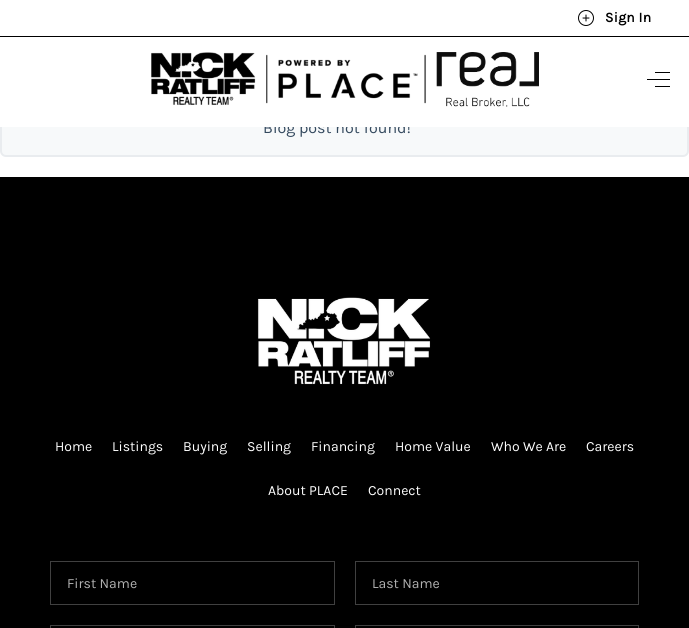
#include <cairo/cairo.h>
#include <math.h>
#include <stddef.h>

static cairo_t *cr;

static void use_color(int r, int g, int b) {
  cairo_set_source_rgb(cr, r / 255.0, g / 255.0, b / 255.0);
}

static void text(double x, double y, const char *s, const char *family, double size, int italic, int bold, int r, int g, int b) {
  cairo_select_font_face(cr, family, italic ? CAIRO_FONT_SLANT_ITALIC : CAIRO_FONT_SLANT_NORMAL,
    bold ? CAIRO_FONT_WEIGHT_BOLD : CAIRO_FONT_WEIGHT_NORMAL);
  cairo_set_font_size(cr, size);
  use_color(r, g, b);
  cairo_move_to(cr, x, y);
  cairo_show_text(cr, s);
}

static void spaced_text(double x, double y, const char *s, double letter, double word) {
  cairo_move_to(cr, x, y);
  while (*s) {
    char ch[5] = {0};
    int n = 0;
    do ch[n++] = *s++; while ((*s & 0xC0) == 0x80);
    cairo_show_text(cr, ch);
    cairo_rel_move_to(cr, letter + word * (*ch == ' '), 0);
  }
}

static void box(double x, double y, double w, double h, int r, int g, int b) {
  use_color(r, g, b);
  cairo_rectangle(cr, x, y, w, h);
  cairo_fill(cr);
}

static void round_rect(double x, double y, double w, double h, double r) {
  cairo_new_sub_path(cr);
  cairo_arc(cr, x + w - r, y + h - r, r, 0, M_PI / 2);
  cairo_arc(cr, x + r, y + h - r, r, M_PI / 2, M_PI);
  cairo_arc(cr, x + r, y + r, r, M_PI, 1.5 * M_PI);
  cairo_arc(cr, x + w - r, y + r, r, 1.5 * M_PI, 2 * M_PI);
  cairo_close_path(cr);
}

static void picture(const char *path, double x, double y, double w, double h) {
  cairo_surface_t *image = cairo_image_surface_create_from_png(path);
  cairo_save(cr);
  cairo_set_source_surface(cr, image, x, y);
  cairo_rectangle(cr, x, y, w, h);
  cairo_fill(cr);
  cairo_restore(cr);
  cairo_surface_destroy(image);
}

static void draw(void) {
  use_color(255, 255, 255);
  cairo_paint(cr);
  box(0, 36, 689, 1, 0, 0, 0);
  picture("img_01.png", 578, 10, 16, 16);
  box(655, 72, 15, 1, 0, 0, 0);
  box(647, 79, 23, 1, 0, 0, 0);
  box(655, 86, 15, 1, 0, 0, 0);
  use_color(247, 249, 250);
  round_rect(1, 96, 687, 60, 5);
  cairo_fill_preserve(cr);
  use_color(233, 236, 239);
  cairo_stroke(cr);
  box(0, 177, 689, 451, 0, 0, 0);
  picture("img_03.png", 257, 297, 174, 88);
  cairo_rectangle(cr, 50.5, 561.5, 284, 43);
  use_color(64, 64, 64);
  cairo_set_line_width(cr, 1);
  cairo_stroke(cr);
  cairo_rectangle(cr, 355.5, 561.5, 283, 43);
  cairo_stroke(cr);
  cairo_rectangle(cr, 50.5, 625.5, 284, 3);
  cairo_stroke(cr);
  cairo_rectangle(cr, 355.5, 625.5, 283, 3);
  cairo_stroke(cr);
  cairo_select_font_face(cr, "Karla", CAIRO_FONT_SLANT_NORMAL, CAIRO_FONT_WEIGHT_BOLD);
  cairo_set_font_size(cr, 14);
  use_color(0, 0, 0);
  spaced_text(605, 22, "Sign In", 0.25, 0);
  text(263, 133, "Blog post not found!", "Karla", 16, 0, 0, 52, 73, 94);
  box(0, 95, 689, 32, 255, 255, 255);
  picture("img_02.png", 151, 52, 388, 55);
  text(55, 451, "Home", "Karla", 14, 0, 0, 255, 255, 255);
  text(112, 451, "Listings", "Karla", 14, 0, 0, 255, 255, 255);
  text(183, 451, "Buying", "Karla", 14, 0, 0, 255, 255, 255);
  text(247, 451, "Selling", "Karla", 14, 0, 0, 255, 255, 255);
  text(311, 451, "Financing", "Karla", 14, 0, 0, 255, 255, 255);
  text(395, 451, "Home Value", "Karla", 14, 0, 0, 255, 255, 255);
  text(491, 451, "Who We Are", "Karla", 14, 0, 0, 255, 255, 255);
  text(586, 451, "Careers", "Karla", 14, 0, 0, 255, 255, 255);
  text(268, 495, "About PLACE", "Karla", 14, 0, 0, 255, 255, 255);
  text(368, 495, "Connect", "Karla", 14, 0, 0, 255, 255, 255);
  text(67, 588, "First Name", "Karla", 14, 0, 0, 178, 178, 178);
  text(372, 588, "Last Name", "Karla", 14, 0, 0, 178, 178, 178);
}

int main(void) {
  cairo_surface_t *surface = cairo_image_surface_create(CAIRO_FORMAT_RGB24, 689, 628);
  cr = cairo_create(surface);
  cairo_font_options_t *options = cairo_font_options_create();
  cairo_font_options_set_hint_metrics(options, CAIRO_HINT_METRICS_OFF);
  cairo_font_options_set_hint_style(options, CAIRO_HINT_STYLE_NONE);
  cairo_set_font_options(cr, options);
  cairo_set_miter_limit(cr, 4);
  draw();
  cairo_surface_write_to_png(surface, "out.png");
  cairo_font_options_destroy(options);
  cairo_destroy(cr);
  cairo_surface_destroy(surface);
  return 0;
}
